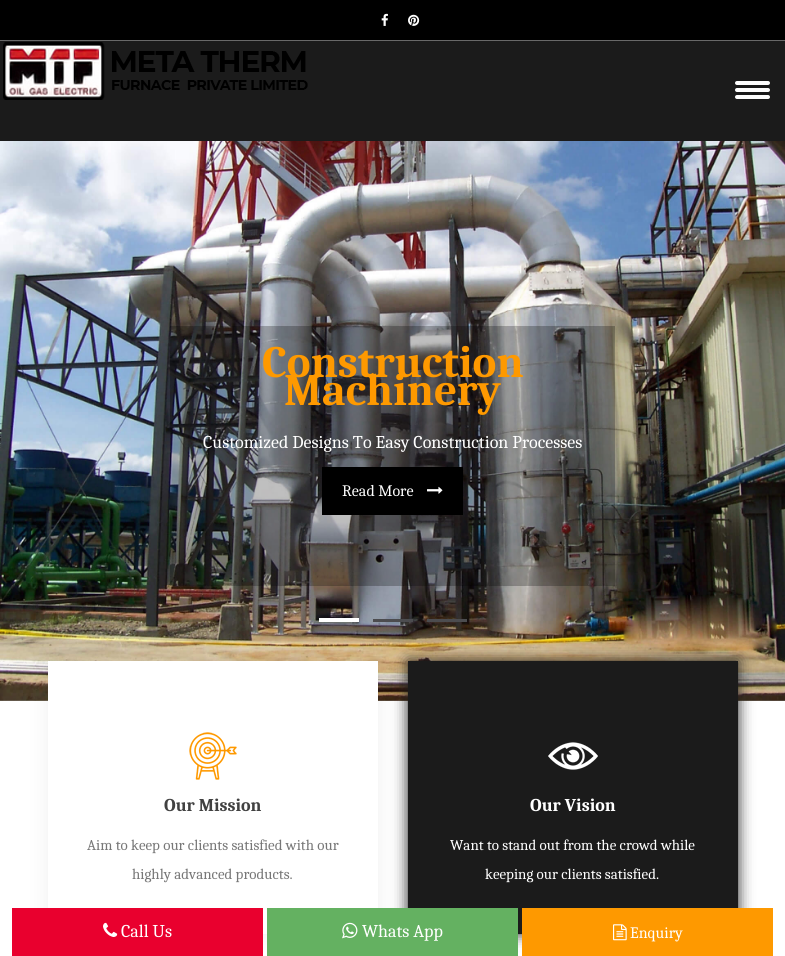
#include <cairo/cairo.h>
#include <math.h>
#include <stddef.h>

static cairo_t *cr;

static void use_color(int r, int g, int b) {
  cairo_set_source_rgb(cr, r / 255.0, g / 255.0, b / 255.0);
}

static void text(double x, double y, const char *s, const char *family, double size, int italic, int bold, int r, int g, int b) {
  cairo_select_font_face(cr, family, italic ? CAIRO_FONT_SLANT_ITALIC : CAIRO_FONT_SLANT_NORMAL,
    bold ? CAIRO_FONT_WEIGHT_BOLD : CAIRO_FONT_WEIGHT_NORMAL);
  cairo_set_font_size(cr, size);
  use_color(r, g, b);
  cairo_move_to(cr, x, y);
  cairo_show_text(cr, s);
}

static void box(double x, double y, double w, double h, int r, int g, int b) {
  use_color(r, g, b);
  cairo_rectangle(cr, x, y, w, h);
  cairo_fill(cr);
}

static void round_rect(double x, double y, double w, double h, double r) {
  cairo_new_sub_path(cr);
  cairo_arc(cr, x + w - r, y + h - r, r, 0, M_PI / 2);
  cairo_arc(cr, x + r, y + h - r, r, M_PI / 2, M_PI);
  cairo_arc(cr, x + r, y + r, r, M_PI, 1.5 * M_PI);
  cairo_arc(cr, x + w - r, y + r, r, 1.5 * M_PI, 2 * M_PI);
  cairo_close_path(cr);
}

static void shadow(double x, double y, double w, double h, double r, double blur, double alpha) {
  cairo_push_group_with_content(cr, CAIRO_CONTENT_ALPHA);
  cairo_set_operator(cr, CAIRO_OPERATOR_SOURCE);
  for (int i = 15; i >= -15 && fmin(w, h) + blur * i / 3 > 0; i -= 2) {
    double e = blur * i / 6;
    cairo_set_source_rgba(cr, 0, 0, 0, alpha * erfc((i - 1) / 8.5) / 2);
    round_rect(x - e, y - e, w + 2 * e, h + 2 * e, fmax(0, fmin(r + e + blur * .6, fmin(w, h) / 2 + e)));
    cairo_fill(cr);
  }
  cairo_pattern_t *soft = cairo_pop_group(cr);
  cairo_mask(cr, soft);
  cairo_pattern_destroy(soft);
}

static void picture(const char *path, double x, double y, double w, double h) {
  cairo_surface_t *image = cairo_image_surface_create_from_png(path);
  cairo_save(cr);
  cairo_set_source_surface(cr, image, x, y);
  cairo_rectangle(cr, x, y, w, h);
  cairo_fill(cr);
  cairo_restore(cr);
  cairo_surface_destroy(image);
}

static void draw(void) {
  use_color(255, 255, 255);
  cairo_paint(cr);
  box(0, 0, 785, 40, 0, 0, 0);
  box(0, 40, 785, 1, 105, 105, 105);
  picture("img_01.png", 381, 13, 7, 13);
  picture("img_02.png", 408, 14, 12, 12);
  box(0, 41, 785, 100, 27, 27, 27);
  use_color(255, 255, 255);
  round_rect(735, 81, 35, 4, 2);
  cairo_fill(cr);
  round_rect(735, 88, 35, 4, 2);
  cairo_fill(cr);
  round_rect(735, 95, 35, 4, 2);
  cairo_fill(cr);
  picture("img_03.png", 3, 42, 305, 58);
  picture("img_04.png", 0, 141, 785, 560);
  cairo_set_source_rgba(cr, 0, 0, 0, 0.25);
  cairo_rectangle(cr, 170, 326, 445, 260);
  cairo_fill(cr);
  box(322, 467, 141, 48, 0, 0, 0);
  picture("img_05.png", 427, 486, 16, 8);
  box(319, 618, 40, 4, 255, 255, 255);
  box(373, 619, 40, 3, 76, 76, 79);
  box(427, 619, 40, 3, 76, 76, 79);
  use_color(0, 0, 0);
  shadow(45, 658, 336, 279, 0, 10, 0.05);
  box(48, 661, 330, 273, 255, 255, 255);
  picture("img_06.png", 189, 732, 48, 48);
  use_color(27, 27, 27);
  shadow(408, 661, 330, 273, 0, 7.5, 1);
  box(408, 661, 330, 273, 27, 27, 27);
  picture("img_07.png", 548, 742, 50, 28);
  box(12, 908, 251, 48, 233, 0, 46);
  picture("img_08.png", 103, 922, 15, 15);
  box(267, 908, 251, 48, 100, 177, 97);
  picture("img_09.png", 342, 922, 16, 17);
  box(522, 908, 251, 48, 254, 153, 0);
  picture("img_10.png", 613, 924, 14, 17);
  text(262, 377, "Construction", "Caladea", 45, 0, 1, 254, 153, 0);
  text(284, 405, "Machinery", "Caladea", 45, 0, 1, 254, 153, 0);
  text(203, 448, "Customized Designs To Easy Construction Processes", "Caladea", 18, 0, 0, 255, 255, 255);
  text(342, 496, "Read More", "Caladea", 16, 0, 0, 255, 255, 255);
  text(164, 811, "Our Mission", "Caladea", 18, 0, 1, 65, 65, 65);
  text(87, 850, "Aim to keep our clients satisfied with our", "Caladea", 15, 0, 0, 119, 119, 119);
  text(132, 879, "highly advanced products.", "Caladea", 15, 0, 0, 119, 119, 119);
  text(530, 811, "Our Vision", "Caladea", 18, 0, 1, 255, 255, 255);
  text(450, 850, "Want to stand out from the crowd while", "Caladea", 15, 0, 0, 255, 255, 255);
  text(485, 879, "keeping our clients satisfied.", "Caladea", 15, 0, 0, 255, 255, 255);
  text(121, 937, "Call Us", "Caladea", 18, 0, 0, 255, 255, 255);
  text(362, 937, "Whats App", "Caladea", 18, 0, 0, 255, 255, 255);
  text(630, 938, "Enquiry", "Caladea", 16, 0, 0, 255, 255, 255);
}

int main(void) {
  cairo_surface_t *surface = cairo_image_surface_create(CAIRO_FORMAT_RGB24, 785, 956);
  cr = cairo_create(surface);
  cairo_font_options_t *options = cairo_font_options_create();
  cairo_font_options_set_hint_metrics(options, CAIRO_HINT_METRICS_OFF);
  cairo_font_options_set_hint_style(options, CAIRO_HINT_STYLE_NONE);
  cairo_set_font_options(cr, options);
  cairo_set_miter_limit(cr, 4);
  draw();
  cairo_surface_write_to_png(surface, "out.png");
  cairo_font_options_destroy(options);
  cairo_destroy(cr);
  cairo_surface_destroy(surface);
  return 0;
}
